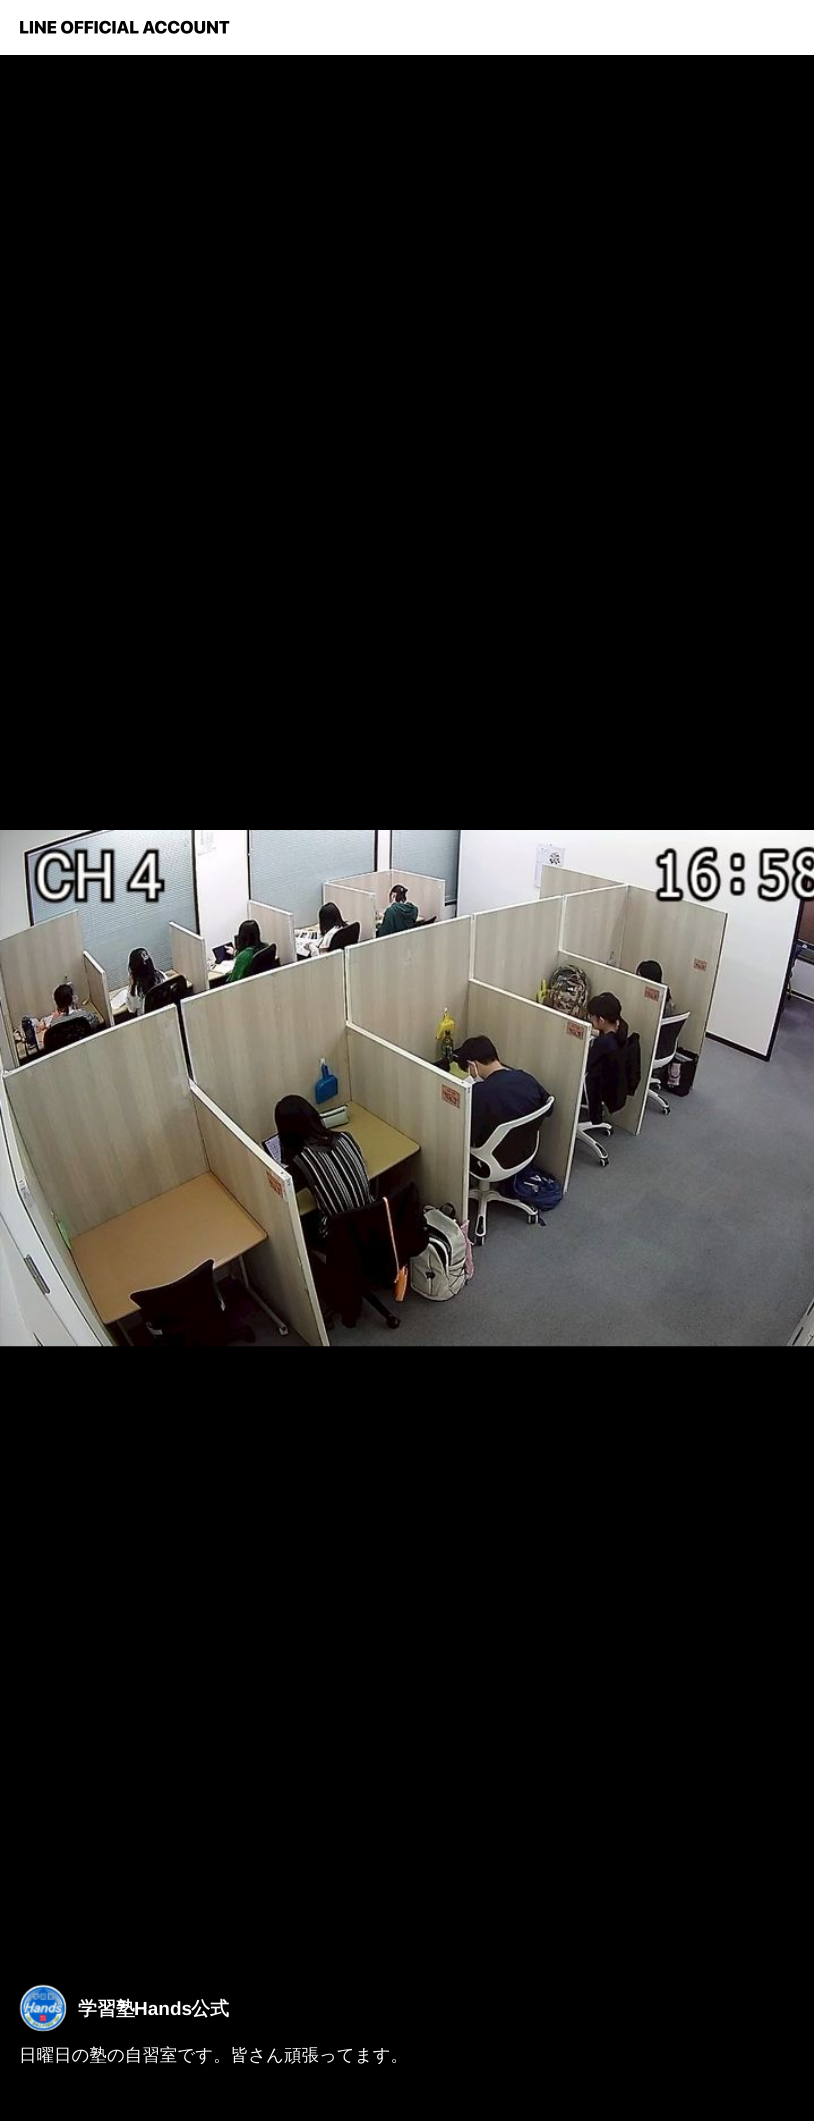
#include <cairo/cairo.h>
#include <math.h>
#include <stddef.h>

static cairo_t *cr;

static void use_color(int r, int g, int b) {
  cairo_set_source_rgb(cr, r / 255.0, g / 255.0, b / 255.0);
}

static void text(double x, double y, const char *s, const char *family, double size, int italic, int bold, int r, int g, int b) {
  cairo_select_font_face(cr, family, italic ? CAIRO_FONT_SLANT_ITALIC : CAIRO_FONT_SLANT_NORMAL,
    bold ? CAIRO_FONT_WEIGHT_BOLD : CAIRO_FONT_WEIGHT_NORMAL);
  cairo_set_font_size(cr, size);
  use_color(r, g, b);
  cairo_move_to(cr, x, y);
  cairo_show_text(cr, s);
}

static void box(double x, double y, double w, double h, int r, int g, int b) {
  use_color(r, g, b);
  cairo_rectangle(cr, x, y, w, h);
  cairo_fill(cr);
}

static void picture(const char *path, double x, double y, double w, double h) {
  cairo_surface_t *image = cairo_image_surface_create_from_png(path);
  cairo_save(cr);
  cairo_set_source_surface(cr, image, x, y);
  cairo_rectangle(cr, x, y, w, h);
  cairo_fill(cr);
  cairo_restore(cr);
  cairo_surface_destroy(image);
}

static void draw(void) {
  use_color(0, 0, 0);
  cairo_paint(cr);
  box(0, 0, 814, 55, 255, 255, 255);
  picture("img_01.png", 20, 20, 210, 14);
  picture("img_02.png", 0, 830, 814, 517);
  picture("img_03.png", 19, 1984, 48, 48);
  text(78, 2015, "学習塾", "WenQuanYi Zen Hei", 19, 0, 1, 255, 255, 255);
  text(134, 2015, "Hands", "Liberation Sans", 19, 0, 1, 255, 255, 255);
  text(191, 2015, "公式", "WenQuanYi Zen Hei", 19, 0, 1, 255, 255, 255);
  text(19, 2061, "日曜日の塾の自習室です。皆さん頑張ってます。", "WenQuanYi Zen Hei Medium", 17.5, 0, 0, 255, 255, 255);
}

int main(void) {
  cairo_surface_t *surface = cairo_image_surface_create(CAIRO_FORMAT_RGB24, 814, 2121);
  cr = cairo_create(surface);
  cairo_font_options_t *options = cairo_font_options_create();
  cairo_font_options_set_hint_metrics(options, CAIRO_HINT_METRICS_OFF);
  cairo_font_options_set_hint_style(options, CAIRO_HINT_STYLE_NONE);
  cairo_set_font_options(cr, options);
  cairo_set_miter_limit(cr, 4);
  draw();
  cairo_surface_write_to_png(surface, "out.png");
  cairo_font_options_destroy(options);
  cairo_destroy(cr);
  cairo_surface_destroy(surface);
  return 0;
}
